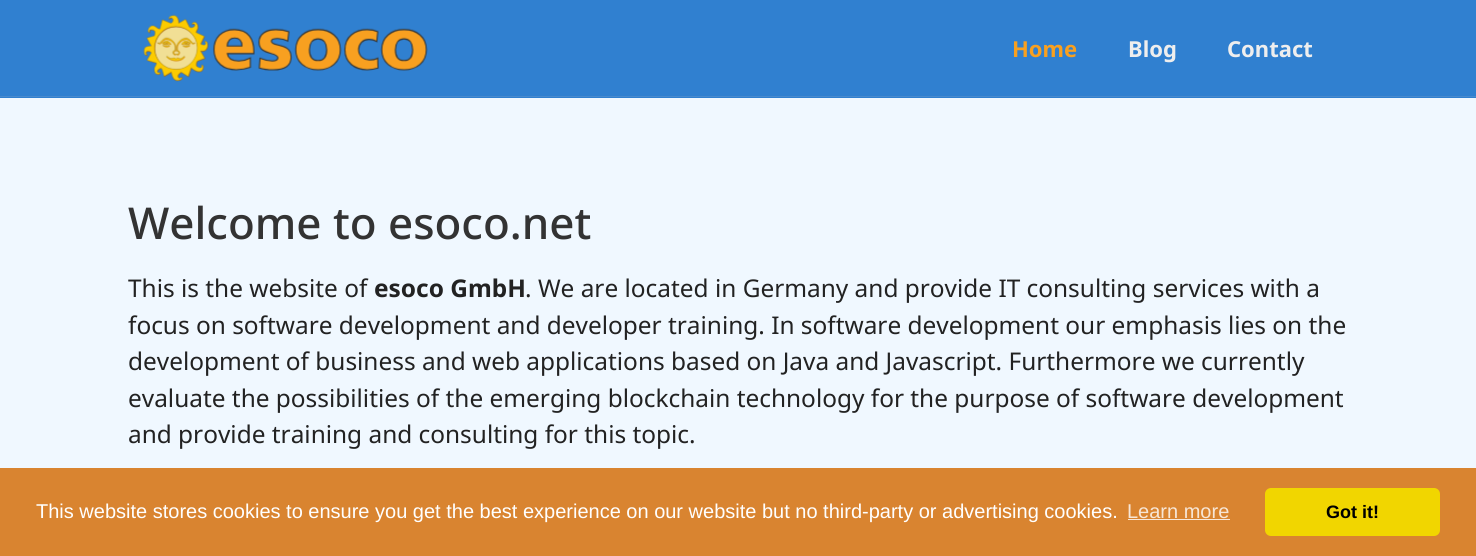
#include <cairo/cairo.h>
#include <math.h>
#include <stddef.h>

static cairo_t *cr;

static void use_color(int r, int g, int b) {
  cairo_set_source_rgb(cr, r / 255.0, g / 255.0, b / 255.0);
}

static void text(double x, double y, const char *s, const char *family, double size, int italic, int bold, int r, int g, int b) {
  cairo_select_font_face(cr, family, italic ? CAIRO_FONT_SLANT_ITALIC : CAIRO_FONT_SLANT_NORMAL,
    bold ? CAIRO_FONT_WEIGHT_BOLD : CAIRO_FONT_WEIGHT_NORMAL);
  cairo_set_font_size(cr, size);
  use_color(r, g, b);
  cairo_move_to(cr, x, y);
  cairo_show_text(cr, s);
}

static void box(double x, double y, double w, double h, int r, int g, int b) {
  use_color(r, g, b);
  cairo_rectangle(cr, x, y, w, h);
  cairo_fill(cr);
}

static void round_rect(double x, double y, double w, double h, double r) {
  cairo_new_sub_path(cr);
  cairo_arc(cr, x + w - r, y + h - r, r, 0, M_PI / 2);
  cairo_arc(cr, x + r, y + h - r, r, M_PI / 2, M_PI);
  cairo_arc(cr, x + r, y + r, r, M_PI, 1.5 * M_PI);
  cairo_arc(cr, x + w - r, y + r, r, 1.5 * M_PI, 2 * M_PI);
  cairo_close_path(cr);
}

static void picture(const char *path, double x, double y, double w, double h) {
  cairo_surface_t *image = cairo_image_surface_create_from_png(path);
  cairo_save(cr);
  cairo_set_source_surface(cr, image, x, y);
  cairo_rectangle(cr, x, y, w, h);
  cairo_fill(cr);
  cairo_restore(cr);
  cairo_surface_destroy(image);
}

static void draw(void) {
  use_color(240, 248, 255);
  cairo_paint(cr);
  box(0, 0, 1476, 98, 48, 128, 208);
  box(0, 96, 1476, 1, 73, 138, 205);
  picture("img_01.png", 143, 14, 285, 68);
  box(0, 468, 1476, 88, 217, 132, 48);
  box(1128, 519, 102, 1, 247, 230, 214);
  use_color(241, 214, 0);
  round_rect(1266.5, 489.5, 172, 45, 4.5);
  cairo_fill_preserve(cr);
  cairo_set_line_width(cr, 3);
  cairo_stroke(cr);
  text(1012, 57, "Home", "Noto Sans", 22, 0, 1, 248, 160, 32);
  text(1128, 57, "Blog", "Noto Sans", 22, 0, 1, 238, 238, 238);
  text(1227, 57, "Contact", "Noto Sans", 22, 0, 1, 238, 238, 238);
  text(128, 239, "Welcome to esoco.net", "Noto Sans Medium", 43.9, 0, 0, 51, 51, 51);
  text(128, 297, "This is the website of", "Noto Sans", 24.4, 0, 0, 34, 34, 34);
  text(374, 297, "esoco GmbH", "Noto Sans", 24.4, 0, 1, 34, 34, 34);
  text(525, 297, ". We are located in Germany and provide IT consulting services with a", "Noto Sans", 24.4, 0, 0, 34, 34, 34);
  text(128, 334, "focus on software development and developer training. In software development our emphasis lies on the", "Noto Sans", 24.4, 0, 0, 34, 34, 34);
  text(128, 370, "development of business and web applications based on Java and Javascript. Furthermore we currently", "Noto Sans", 24.4, 0, 0, 34, 34, 34);
  text(128, 407, "evaluate the possibilities of the emerging blockchain technology for the purpose of software development", "Noto Sans", 24.4, 0, 0, 34, 34, 34);
  text(128, 443, "and provide training and consulting for this topic.", "Noto Sans", 24.4, 0, 0, 34, 34, 34);
  text(36, 518, "This website stores cookies to ensure you get the best experience on our website but no third-party or advertising cookies.", "Liberation Sans", 20, 0, 0, 255, 255, 255);
  text(1127, 518, "Learn more", "Liberation Sans", 20, 0, 0, 247, 230, 214);
  text(1326, 518, "Got it!", "Liberation Sans", 18, 0, 1, 0, 0, 0);
}

int main(void) {
  cairo_surface_t *surface = cairo_image_surface_create(CAIRO_FORMAT_RGB24, 1476, 556);
  cr = cairo_create(surface);
  cairo_font_options_t *options = cairo_font_options_create();
  cairo_font_options_set_hint_metrics(options, CAIRO_HINT_METRICS_OFF);
  cairo_font_options_set_hint_style(options, CAIRO_HINT_STYLE_NONE);
  cairo_set_font_options(cr, options);
  cairo_set_miter_limit(cr, 4);
  draw();
  cairo_surface_write_to_png(surface, "out.png");
  cairo_font_options_destroy(options);
  cairo_destroy(cr);
  cairo_surface_destroy(surface);
  return 0;
}
